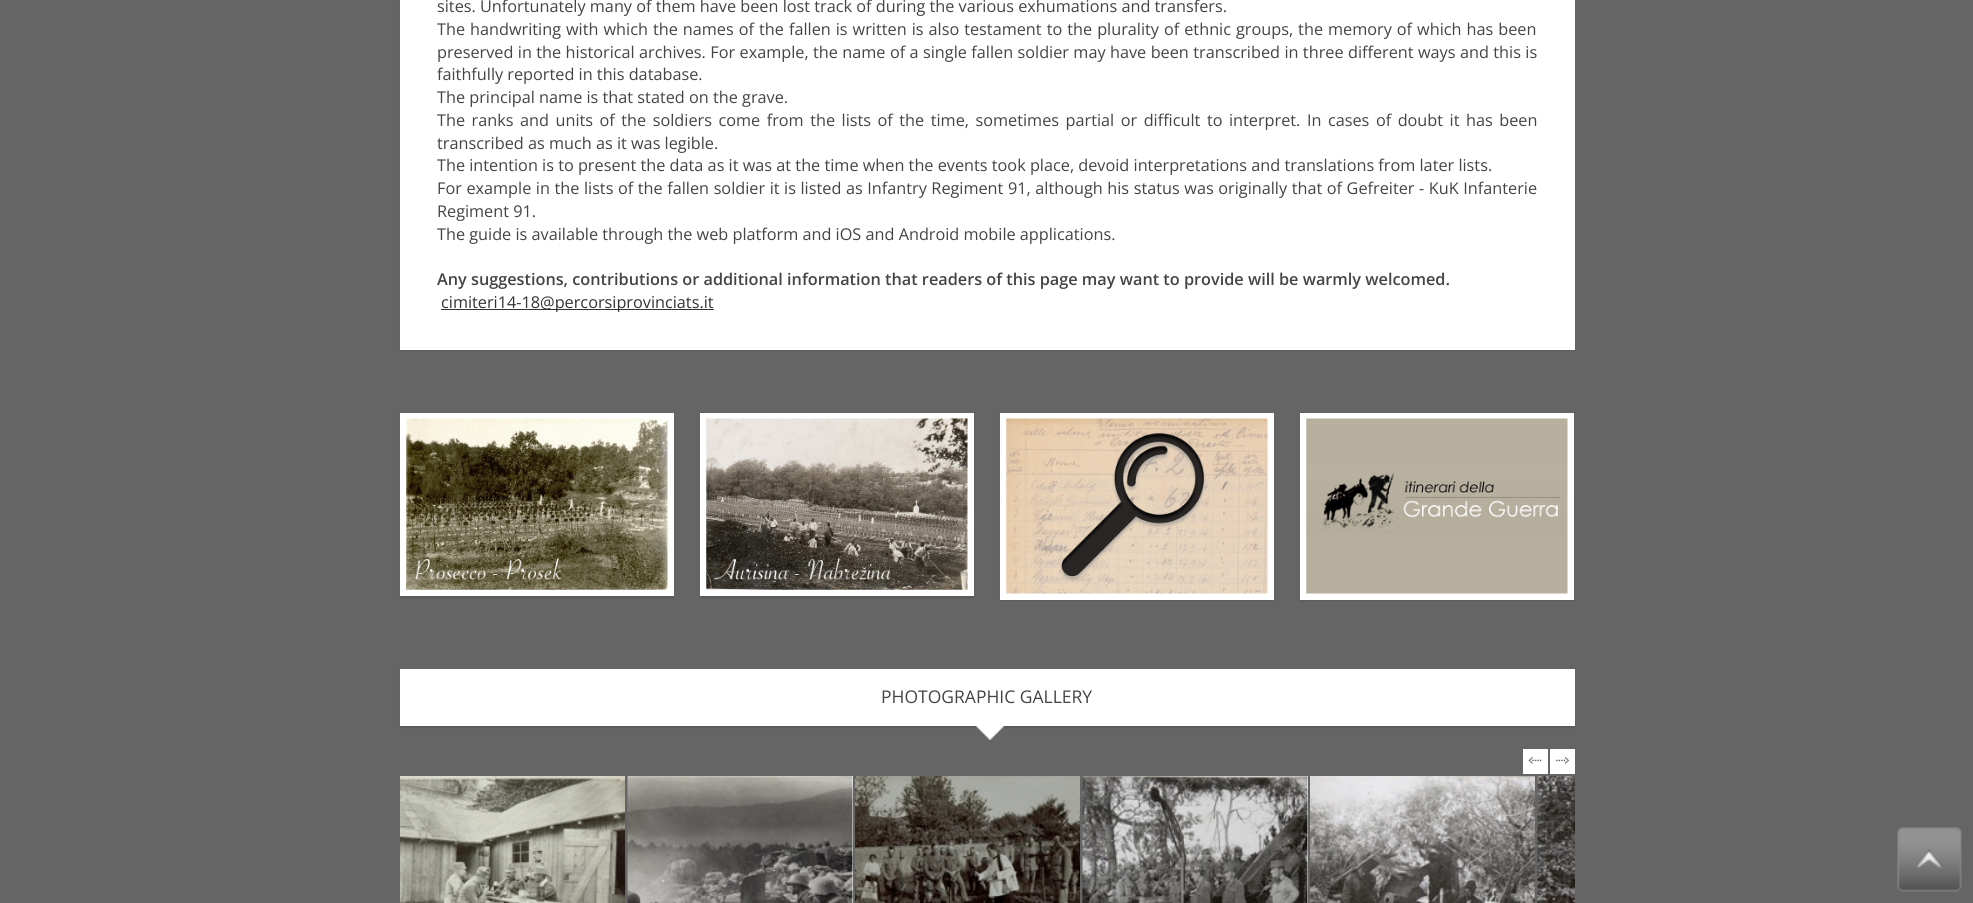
#include <cairo/cairo.h>
#include <math.h>
#include <stddef.h>

static cairo_t *cr;

static void use_color(int r, int g, int b) {
  cairo_set_source_rgb(cr, r / 255.0, g / 255.0, b / 255.0);
}

static void text(double x, double y, const char *s, const char *family, double size, int italic, int bold, int r, int g, int b) {
  cairo_select_font_face(cr, family, italic ? CAIRO_FONT_SLANT_ITALIC : CAIRO_FONT_SLANT_NORMAL,
    bold ? CAIRO_FONT_WEIGHT_BOLD : CAIRO_FONT_WEIGHT_NORMAL);
  cairo_set_font_size(cr, size);
  use_color(r, g, b);
  cairo_move_to(cr, x, y);
  cairo_show_text(cr, s);
}

static void spaced_text(double x, double y, const char *s, double letter, double word) {
  cairo_move_to(cr, x, y);
  while (*s) {
    char ch[5] = {0};
    int n = 0;
    do ch[n++] = *s++; while ((*s & 0xC0) == 0x80);
    cairo_show_text(cr, ch);
    cairo_rel_move_to(cr, letter + word * (*ch == ' '), 0);
  }
}

static void box(double x, double y, double w, double h, int r, int g, int b) {
  use_color(r, g, b);
  cairo_rectangle(cr, x, y, w, h);
  cairo_fill(cr);
}

static void round_rect(double x, double y, double w, double h, double r) {
  cairo_new_sub_path(cr);
  cairo_arc(cr, x + w - r, y + h - r, r, 0, M_PI / 2);
  cairo_arc(cr, x + r, y + h - r, r, M_PI / 2, M_PI);
  cairo_arc(cr, x + r, y + r, r, M_PI, 1.5 * M_PI);
  cairo_arc(cr, x + w - r, y + r, r, 1.5 * M_PI, 2 * M_PI);
  cairo_close_path(cr);
}

static void shadow(double x, double y, double w, double h, double r, double blur, double alpha) {
  cairo_push_group_with_content(cr, CAIRO_CONTENT_ALPHA);
  cairo_set_operator(cr, CAIRO_OPERATOR_SOURCE);
  for (int i = 15; i >= -15 && fmin(w, h) + blur * i / 3 > 0; i -= 2) {
    double e = blur * i / 6;
    cairo_set_source_rgba(cr, 0, 0, 0, alpha * erfc((i - 1) / 8.5) / 2);
    round_rect(x - e, y - e, w + 2 * e, h + 2 * e, fmax(0, fmin(r + e + blur * .6, fmin(w, h) / 2 + e)));
    cairo_fill(cr);
  }
  cairo_pattern_t *soft = cairo_pop_group(cr);
  cairo_mask(cr, soft);
  cairo_pattern_destroy(soft);
}

static void picture(const char *path, double x, double y, double w, double h) {
  cairo_surface_t *image = cairo_image_surface_create_from_png(path);
  cairo_save(cr);
  cairo_set_source_surface(cr, image, x, y);
  cairo_rectangle(cr, x, y, w, h);
  cairo_fill(cr);
  cairo_restore(cr);
  cairo_surface_destroy(image);
}

static void draw(void) {
  use_color(101, 101, 101);
  cairo_paint(cr);
  use_color(0, 0, 0);
  shadow(400, -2, 1175, 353, 0, 0.5, 0.1);
  box(400, 0, 1175, 350, 255, 255, 255);
  box(441, 309, 273, 1, 51, 51, 51);
  use_color(0, 0, 0);
  shadow(400, 414, 274, 184, 0, 0.5, 0.1);
  box(400, 413, 274, 183, 255, 255, 255);
  picture("img_01.png", 406, 418, 262, 172);
  use_color(0, 0, 0);
  shadow(700, 414, 274, 184, 0, 0.5, 0.1);
  box(700, 413, 274, 183, 255, 255, 255);
  picture("img_02.png", 706, 418, 262, 172);
  use_color(0, 0, 0);
  shadow(1000, 414, 274, 187, 0, 0.5, 0.1);
  box(1000, 413, 274, 187, 255, 255, 255);
  picture("img_03.png", 1006, 418, 262, 176);
  use_color(0, 0, 0);
  shadow(1300, 414, 274, 187, 0, 0.5, 0.1);
  box(1300, 413, 274, 187, 255, 255, 255);
  picture("img_04.png", 1306, 418, 262, 176);
  use_color(0, 0, 0);
  shadow(400, 670, 1175, 58, 0, 0.5, 0.1);
  box(400, 669, 1175, 57, 255, 255, 255);
  picture("img_05.png", 976, 726, 28, 14);
  box(1523, 749, 25, 25, 255, 255, 255);
  picture("img_06.png", 1528, 757, 14, 7);
  box(1550, 749, 25, 25, 255, 255, 255);
  picture("img_07.png", 1556, 757, 13, 7);
  picture("img_08.png", 400, 776, 225, 127);
  box(852, 776, 1, 127, 255, 255, 255);
  picture("img_09.png", 627, 776, 226, 127);
  picture("img_10.png", 855, 776, 225, 127);
  box(1307, 776, 1, 127, 255, 255, 255);
  picture("img_11.png", 1082, 776, 226, 127);
  picture("img_12.png", 1310, 776, 225, 127);
  picture("img_13.png", 1537, 776, 38, 127);
  picture("img_14.png", 1897, 827, 65, 65);
  text(437, 12, "sites. Unfortunately many of them have been lost track of during the various exhumations and transfers.", "Open Sans", 16.25, 0, 0, 68, 68, 68);
  spaced_text(437, 35, "The handwriting with which the names of the fallen is written is also testament to the plurality of ethnic groups, the memory of which has been", 0, 0.8);
  spaced_text(437, 58, "preserved in the historical archives. For example, the name of a single fallen soldier may have been transcribed in three different ways and this is", 0, 0.2);
  text(437, 80, "faithfully reported in this database.", "Open Sans", 16.25, 0, 0, 68, 68, 68);
  text(437, 103, "The principal name is that stated on the grave.", "Open Sans", 16.25, 0, 0, 68, 68, 68);
  spaced_text(437, 126, "The ranks and units of the soldiers come from the lists of the time, sometimes partial or difficult to interpret. In cases of doubt it has been", 0, 2.3);
  text(437, 149, "transcribed as much as it was legible.", "Open Sans", 16.25, 0, 0, 68, 68, 68);
  text(437, 171, "The intention is to present the data as it was at the time when the events took place, devoid interpretations and translations from later lists.", "Open Sans", 16.25, 0, 0, 68, 68, 68);
  spaced_text(437, 194, "For example in the lists of the fallen soldier it is listed as Infantry Regiment 91, although his status was originally that of Gefreiter - KuK Infanterie", 0, 0.35);
  text(437, 217, "Regiment 91.", "Open Sans", 16.25, 0, 0, 68, 68, 68);
  text(437, 240, "The guide is available through the web platform and iOS and Android mobile applications.", "Open Sans", 16.25, 0, 0, 68, 68, 68);
  text(437, 285, "Any suggestions, contributions or additional information that readers of this page may want to provide will be warmly welcomed.", "Open Sans SemiBold", 16.25, 0, 0, 68, 68, 68);
  text(441, 308, "cimiteri14-18@percorsiprovinciats.it", "Open Sans", 16.25, 0, 0, 51, 51, 51);
  text(881, 703, "PHOTOGRAPHIC GALLERY", "Open Sans", 17.5, 0, 0, 68, 68, 68);
}

int main(void) {
  cairo_surface_t *surface = cairo_image_surface_create(CAIRO_FORMAT_RGB24, 1973, 903);
  cr = cairo_create(surface);
  cairo_font_options_t *options = cairo_font_options_create();
  cairo_font_options_set_hint_metrics(options, CAIRO_HINT_METRICS_OFF);
  cairo_font_options_set_hint_style(options, CAIRO_HINT_STYLE_NONE);
  cairo_set_font_options(cr, options);
  cairo_set_miter_limit(cr, 4);
  draw();
  cairo_surface_write_to_png(surface, "out.png");
  cairo_font_options_destroy(options);
  cairo_destroy(cr);
  cairo_surface_destroy(surface);
  return 0;
}
